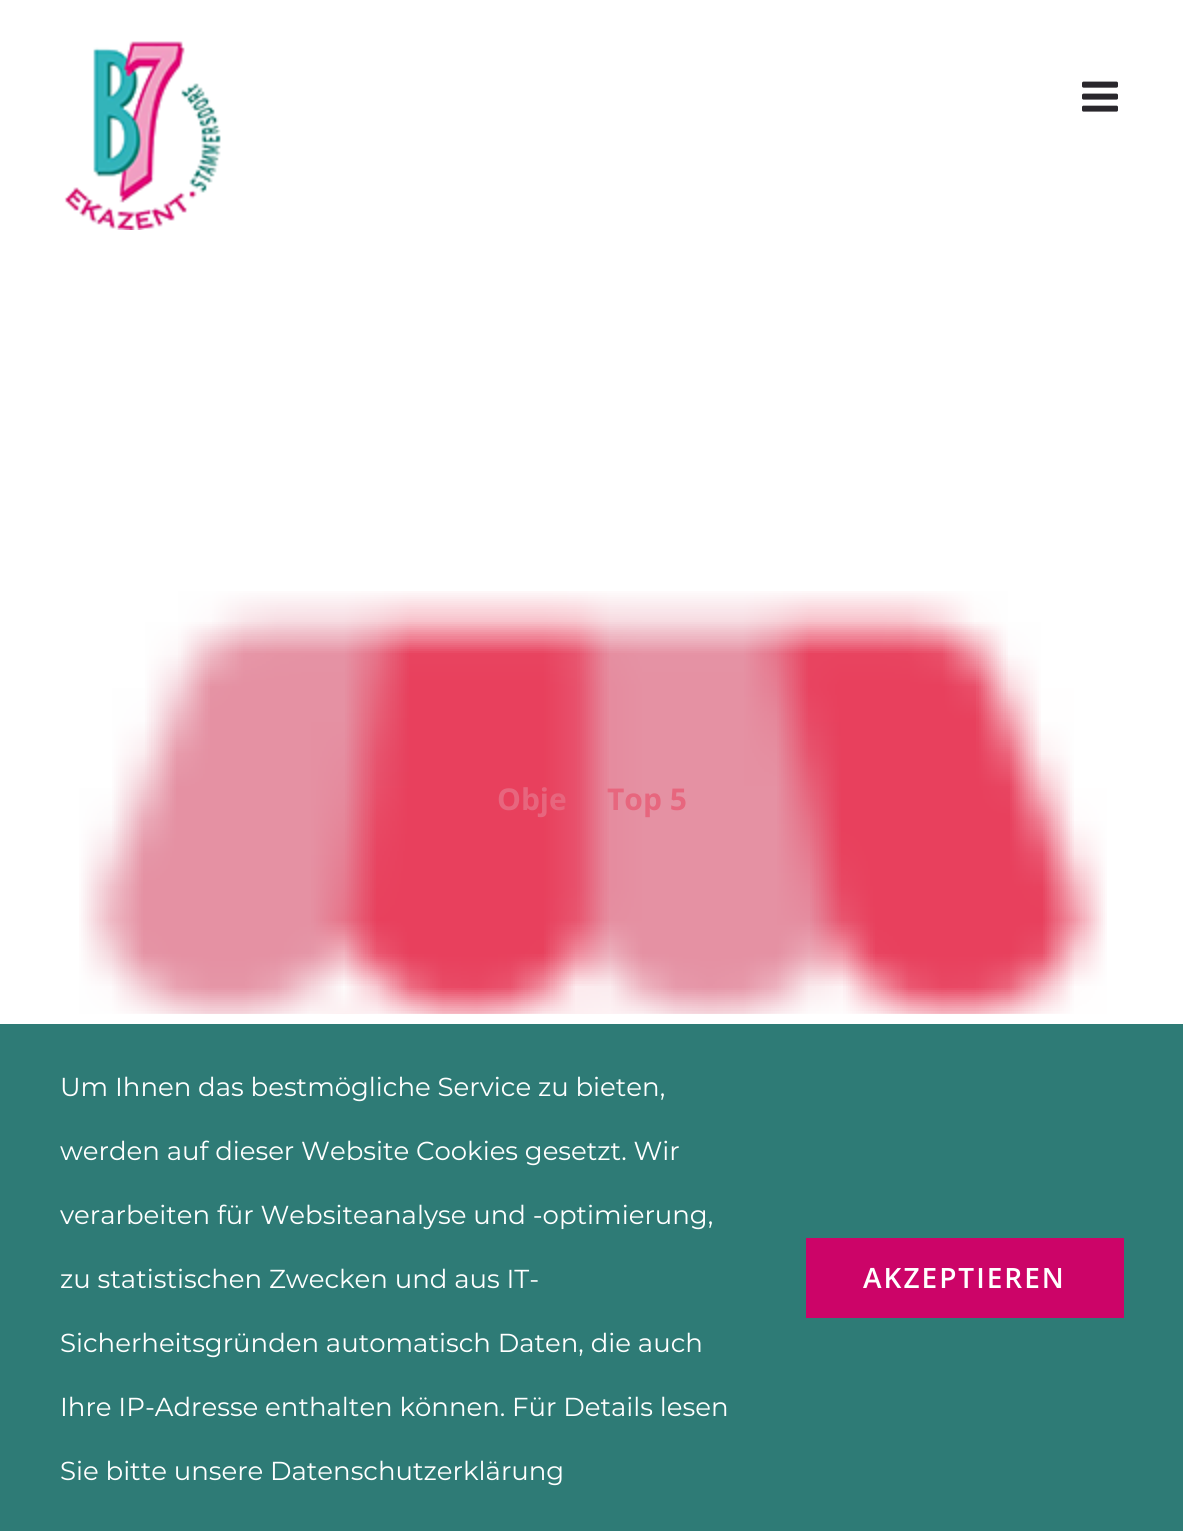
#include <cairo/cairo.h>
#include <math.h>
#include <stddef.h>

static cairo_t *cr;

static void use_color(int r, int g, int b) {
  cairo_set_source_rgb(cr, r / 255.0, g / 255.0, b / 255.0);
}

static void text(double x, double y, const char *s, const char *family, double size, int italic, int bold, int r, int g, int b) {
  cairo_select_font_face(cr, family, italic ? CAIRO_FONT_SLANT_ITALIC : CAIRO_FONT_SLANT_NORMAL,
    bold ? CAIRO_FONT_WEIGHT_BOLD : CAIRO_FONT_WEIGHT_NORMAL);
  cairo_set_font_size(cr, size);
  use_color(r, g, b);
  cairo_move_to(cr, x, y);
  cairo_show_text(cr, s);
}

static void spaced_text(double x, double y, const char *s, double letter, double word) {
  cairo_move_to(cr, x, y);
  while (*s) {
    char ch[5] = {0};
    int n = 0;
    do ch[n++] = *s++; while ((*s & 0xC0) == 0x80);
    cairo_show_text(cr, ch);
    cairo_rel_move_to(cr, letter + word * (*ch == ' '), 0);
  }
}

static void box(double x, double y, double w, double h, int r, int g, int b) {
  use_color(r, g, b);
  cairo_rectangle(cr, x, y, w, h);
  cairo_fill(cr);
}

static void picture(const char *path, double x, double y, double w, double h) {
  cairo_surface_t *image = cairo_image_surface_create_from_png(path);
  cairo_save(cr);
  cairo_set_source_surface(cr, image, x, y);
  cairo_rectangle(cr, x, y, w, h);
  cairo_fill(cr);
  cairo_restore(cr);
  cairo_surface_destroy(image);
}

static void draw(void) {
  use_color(255, 255, 255);
  cairo_paint(cr);
  picture("img_01.png", 64, 41, 157, 189);
  picture("img_02.png", 1082, 81, 36, 31);
  picture("img_03.png", 79, 591, 1028, 423);
  box(0, 1024, 1183, 507, 46, 123, 118);
  box(806, 1238, 318, 80, 204, 4, 104);
  text(497, 810, "Obje", "Open Sans", 30, 0, 1, 231, 102, 126);
  text(607, 810, "Top 5", "Open Sans", 30, 0, 1, 231, 102, 126);
  text(60, 1096, "Um Ihnen das bestmögliche Service zu bieten,", "Montserrat", 26, 0, 0, 255, 255, 255);
  text(60, 1160, "werden auf dieser Website Cookies gesetzt. Wir", "Montserrat", 26, 0, 0, 255, 255, 255);
  text(60, 1224, "verarbeiten für Websiteanalyse und -optimierung,", "Montserrat", 26, 0, 0, 255, 255, 255);
  text(60, 1288, "zu statistischen Zwecken und aus IT-", "Montserrat", 26, 0, 0, 255, 255, 255);
  text(60, 1352, "Sicherheitsgründen automatisch Daten, die auch", "Montserrat", 26, 0, 0, 255, 255, 255);
  text(60, 1416, "Ihre IP-Adresse enthalten können. Für Details lesen", "Montserrat", 26, 0, 0, 255, 255, 255);
  text(60, 1480, "Sie bitte unsere", "Montserrat", 26, 0, 0, 255, 255, 255);
  text(270, 1480, "Datenschutzerklärung", "Montserrat", 26, 0, 0, 255, 255, 255);
  cairo_select_font_face(cr, "Open Sans SemiBold", CAIRO_FONT_SLANT_NORMAL, CAIRO_FONT_WEIGHT_NORMAL);
  cairo_set_font_size(cr, 28);
  spaced_text(863, 1288, "AKZEPTIEREN", 2, 0);
}

int main(void) {
  cairo_surface_t *surface = cairo_image_surface_create(CAIRO_FORMAT_RGB24, 1183, 1531);
  cr = cairo_create(surface);
  cairo_font_options_t *options = cairo_font_options_create();
  cairo_font_options_set_hint_metrics(options, CAIRO_HINT_METRICS_OFF);
  cairo_font_options_set_hint_style(options, CAIRO_HINT_STYLE_NONE);
  cairo_set_font_options(cr, options);
  cairo_set_miter_limit(cr, 4);
  draw();
  cairo_surface_write_to_png(surface, "out.png");
  cairo_font_options_destroy(options);
  cairo_destroy(cr);
  cairo_surface_destroy(surface);
  return 0;
}
